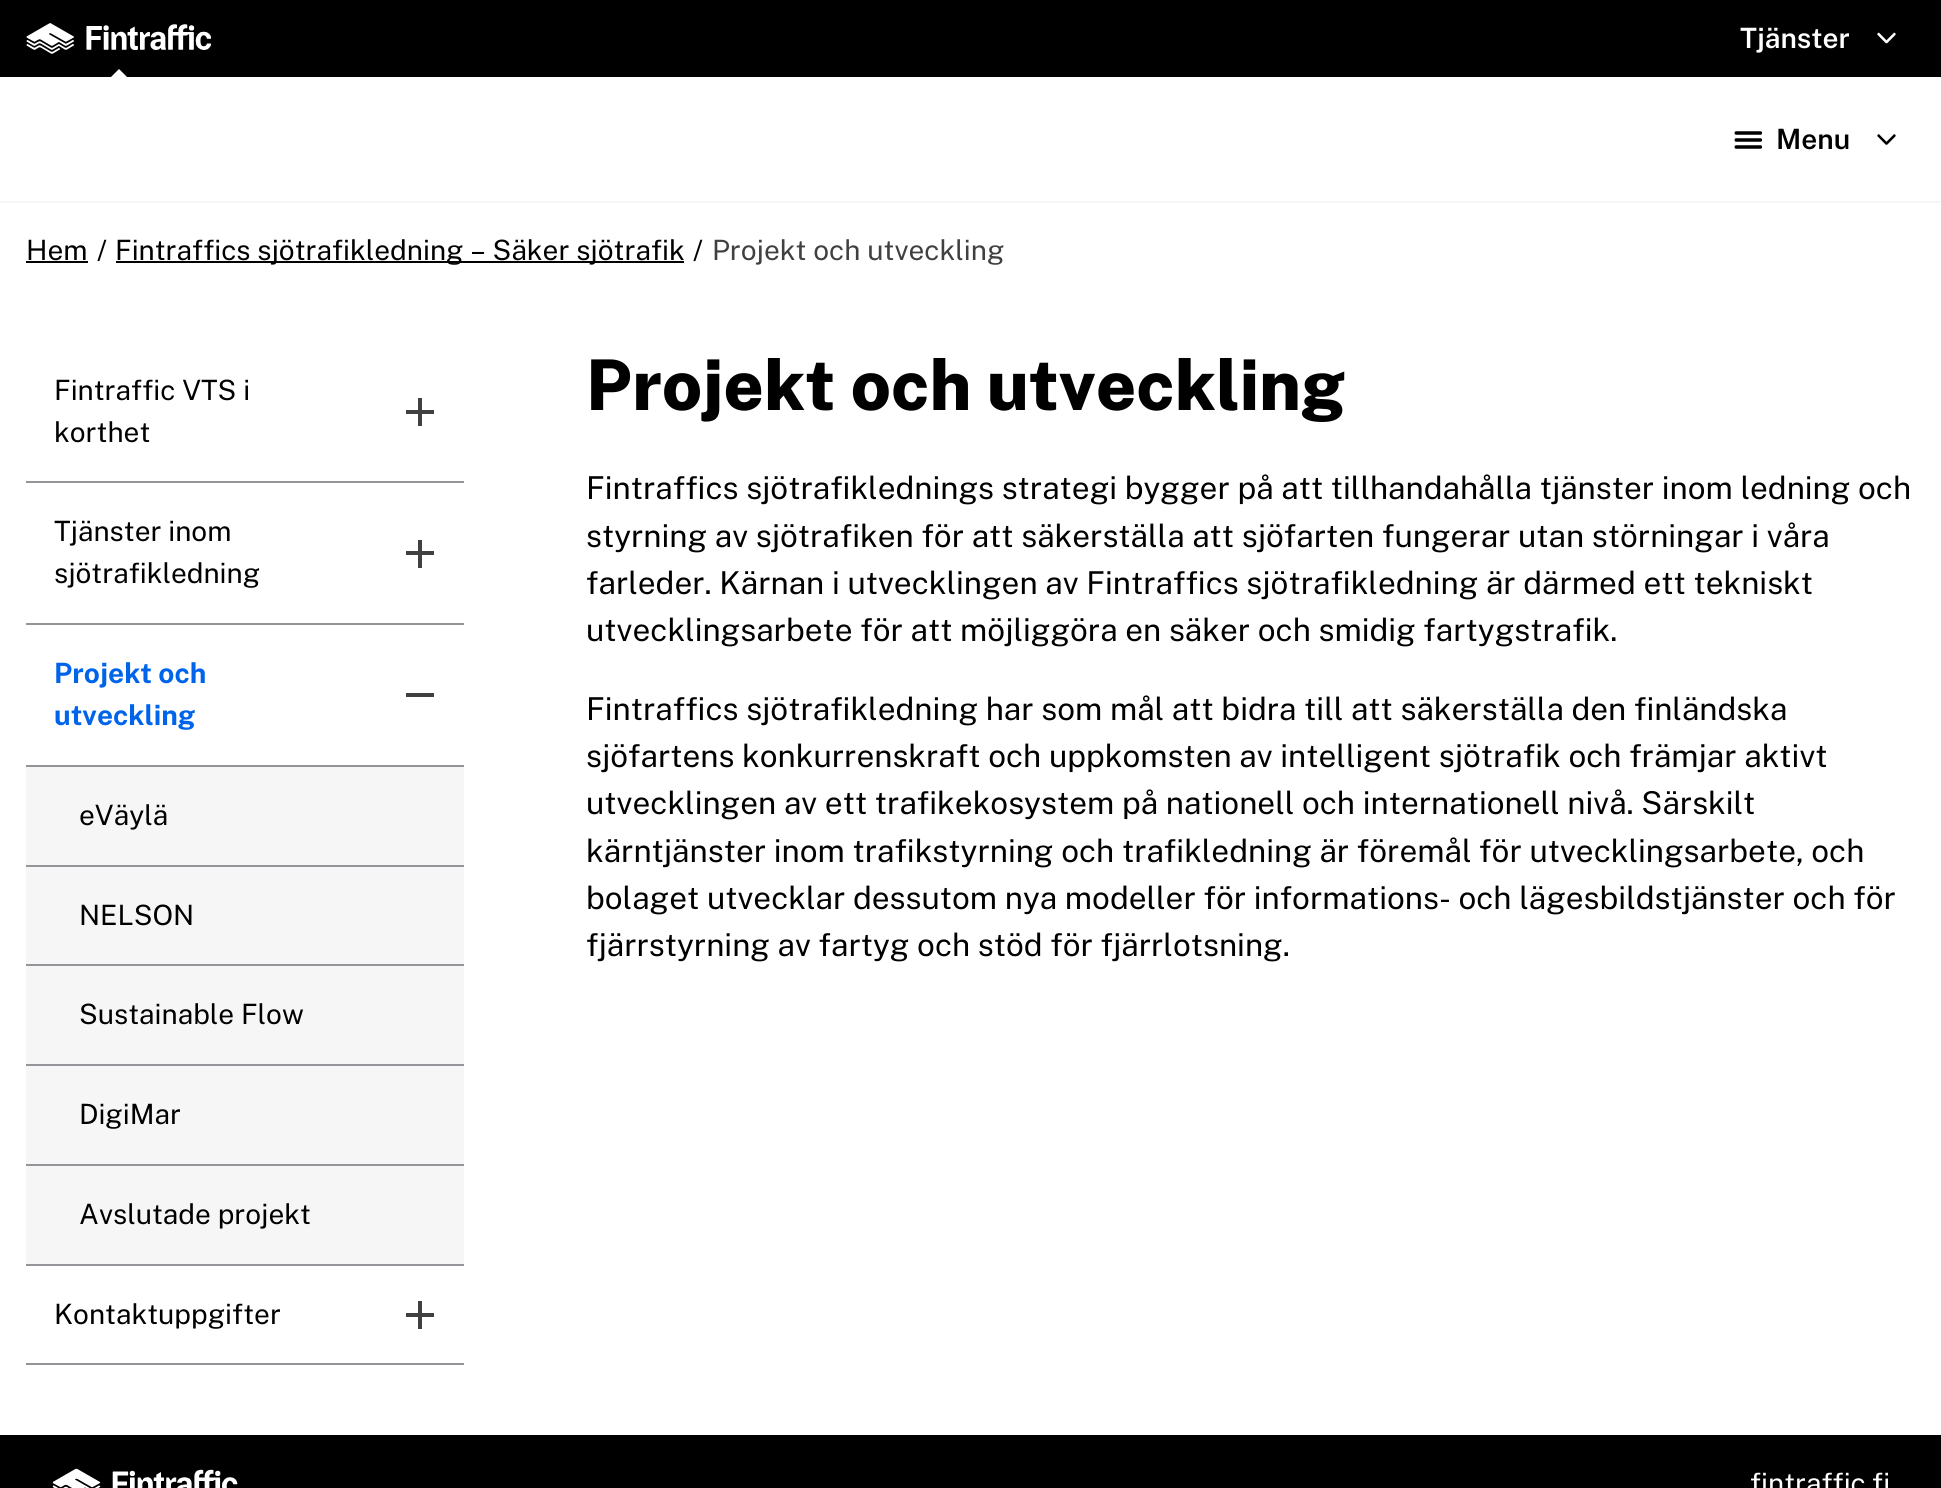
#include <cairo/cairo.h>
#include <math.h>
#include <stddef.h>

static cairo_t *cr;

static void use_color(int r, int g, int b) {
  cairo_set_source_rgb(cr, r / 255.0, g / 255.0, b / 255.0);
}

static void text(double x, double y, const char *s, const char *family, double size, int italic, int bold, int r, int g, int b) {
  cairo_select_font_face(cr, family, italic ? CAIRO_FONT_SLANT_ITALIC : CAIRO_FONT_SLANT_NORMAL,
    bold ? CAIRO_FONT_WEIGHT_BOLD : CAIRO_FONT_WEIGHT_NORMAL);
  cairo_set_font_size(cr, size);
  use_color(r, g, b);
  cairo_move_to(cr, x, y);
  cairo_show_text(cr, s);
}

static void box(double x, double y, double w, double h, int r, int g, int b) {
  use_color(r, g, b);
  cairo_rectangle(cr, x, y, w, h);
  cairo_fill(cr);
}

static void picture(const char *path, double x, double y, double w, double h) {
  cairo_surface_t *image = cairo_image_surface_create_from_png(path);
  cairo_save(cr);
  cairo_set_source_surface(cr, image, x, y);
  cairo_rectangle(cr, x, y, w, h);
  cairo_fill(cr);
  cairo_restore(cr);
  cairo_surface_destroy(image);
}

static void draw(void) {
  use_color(255, 255, 255);
  cairo_paint(cr);
  box(0, 0, 1941, 77, 0, 0, 0);
  picture("img_01.png", 26, 23, 186, 31);
  picture("img_02.png", 1877, 32, 19, 12);
  use_color(255, 255, 255);
  cairo_new_path(cr);
  cairo_move_to(cr, 119, 69);
  cairo_line_to(cr, 129, 79);
  cairo_line_to(cr, 119, 88.5);
  cairo_line_to(cr, 109, 79);
  cairo_close_path(cr);
  cairo_fill(cr);
  box(0, 201, 1941, 2, 246, 246, 246);
  picture("img_03.png", 1734, 131, 28, 18);
  picture("img_04.png", 1877, 134, 19, 11);
  box(26, 261, 62, 2, 0, 0, 0);
  box(116, 261, 568, 2, 0, 0, 0);
  box(26, 481, 438, 2, 149, 149, 153);
  box(406, 410, 28, 4, 64, 64, 64);
  box(418, 398, 4, 28, 64, 64, 64);
  box(26, 623, 438, 2, 149, 149, 153);
  box(406, 551, 28, 4, 64, 64, 64);
  box(418, 540, 4, 28, 64, 64, 64);
  box(26, 1264, 438, 2, 149, 149, 153);
  box(406, 693, 28, 4, 64, 64, 64);
  box(26, 767, 438, 497, 246, 246, 246);
  box(26, 765, 438, 2, 149, 149, 153);
  box(26, 865, 438, 2, 149, 149, 153);
  box(26, 964, 438, 2, 149, 149, 153);
  box(26, 1064, 438, 2, 149, 149, 153);
  box(26, 1164, 438, 2, 149, 149, 153);
  box(26, 1363, 438, 2, 149, 149, 153);
  box(406, 1313, 28, 4, 64, 64, 64);
  box(418, 1301, 4, 28, 64, 64, 64);
  box(0, 1435, 1941, 53, 0, 0, 0);
  picture("img_05.png", 52, 1468, 186, 20);
  text(1740, 48, "Tjänster", "Public Sans Thin", 28, 0, 0, 255, 255, 255);
  text(1776, 149, "Menu", "Public Sans Thin", 28, 0, 0, 0, 0, 0);
  text(26, 260, "Hem", "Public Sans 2 Thin", 28, 0, 0, 0, 0, 0);
  text(97, 260, "/", "Public Sans 2 Thin", 28, 0, 0, 0, 0, 0);
  text(115, 260, "Fintraffics sjötrafikledning – Säker sjötrafik", "Public Sans 2 Thin", 28, 0, 0, 0, 0, 0);
  text(693, 260, "/", "Public Sans 2 Thin", 28, 0, 0, 0, 0, 0);
  text(712, 260, "Projekt och utveckling", "Public Sans 2 Thin", 28, 0, 0, 64, 64, 64);
  text(54, 400, "Fintraffic VTS i", "Public Sans 2 Thin", 28, 0, 0, 0, 0, 0);
  text(54, 442, "korthet", "Public Sans 2 Thin", 28, 0, 0, 0, 0, 0);
  text(54, 541, "Tjänster inom", "Public Sans 2 Thin", 28, 0, 0, 0, 0, 0);
  text(54, 583, "sjötrafikledning", "Public Sans 2 Thin", 28, 0, 0, 0, 0, 0);
  text(54, 683, "Projekt och", "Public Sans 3 Thin", 28, 0, 0, 0, 100, 235);
  text(54, 725, "utveckling", "Public Sans 3 Thin", 28, 0, 0, 0, 100, 235);
  text(79, 825, "eVäylä", "Public Sans 2 Thin", 28, 0, 0, 0, 0, 0);
  text(79, 925, "NELSON", "Public Sans 2 Thin", 28, 0, 0, 0, 0, 0);
  text(79, 1024, "Sustainable Flow", "Public Sans 2 Thin", 28, 0, 0, 0, 0, 0);
  text(79, 1124, "DigiMar", "Public Sans 2 Thin", 28, 0, 0, 0, 0, 0);
  text(79, 1224, "Avslutade projekt", "Public Sans 2 Thin", 28, 0, 0, 0, 0, 0);
  text(54, 1324, "Kontaktuppgifter", "Public Sans 2 Thin", 28, 0, 0, 0, 0, 0);
  text(586, 410, "Projekt och utveckling", "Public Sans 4 Thin", 70, 0, 0, 0, 0, 0);
  text(586, 499, "Fintraffics sjötrafiklednings strategi bygger på att tillhandahålla tjänster inom ledning och", "Public Sans 2 Thin", 31.5, 0, 0, 0, 0, 0);
  text(586, 547, "styrning av sjötrafiken för att säkerställa att sjöfarten fungerar utan störningar i våra", "Public Sans 2 Thin", 31.5, 0, 0, 0, 0, 0);
  text(586, 594, "farleder. Kärnan i utvecklingen av Fintraffics sjötrafikledning är därmed ett tekniskt", "Public Sans 2 Thin", 31.5, 0, 0, 0, 0, 0);
  text(586, 641, "utvecklingsarbete för att möjliggöra en säker och smidig fartygstrafik.", "Public Sans 2 Thin", 31.5, 0, 0, 0, 0, 0);
  text(586, 720, "Fintraffics sjötrafikledning har som mål att bidra till att säkerställa den finländska", "Public Sans 2 Thin", 31.5, 0, 0, 0, 0, 0);
  text(586, 767, "sjöfartens konkurrenskraft och uppkomsten av intelligent sjötrafik och främjar aktivt", "Public Sans 2 Thin", 31.5, 0, 0, 0, 0, 0);
  text(586, 814, "utvecklingen av ett trafikekosystem på nationell och internationell nivå. Särskilt", "Public Sans 2 Thin", 31.5, 0, 0, 0, 0, 0);
  text(586, 862, "kärntjänster inom trafikstyrning och trafikledning är föremål för utvecklingsarbete, och", "Public Sans 2 Thin", 31.5, 0, 0, 0, 0, 0);
  text(586, 909, "bolaget utvecklar dessutom nya modeller för informations- och lägesbildstjänster och för", "Public Sans 2 Thin", 31.5, 0, 0, 0, 0, 0);
  text(586, 956, "fjärrstyrning av fartyg och stöd för fjärrlotsning.", "Public Sans 2 Thin", 31.5, 0, 0, 0, 0, 0);
  text(1750, 1493, "fintraffic.fi", "Public Sans 2 Thin", 28, 0, 0, 255, 255, 255);
}

int main(void) {
  cairo_surface_t *surface = cairo_image_surface_create(CAIRO_FORMAT_RGB24, 1941, 1488);
  cr = cairo_create(surface);
  cairo_font_options_t *options = cairo_font_options_create();
  cairo_font_options_set_hint_metrics(options, CAIRO_HINT_METRICS_OFF);
  cairo_font_options_set_hint_style(options, CAIRO_HINT_STYLE_NONE);
  cairo_set_font_options(cr, options);
  cairo_set_miter_limit(cr, 4);
  draw();
  cairo_surface_write_to_png(surface, "out.png");
  cairo_font_options_destroy(options);
  cairo_destroy(cr);
  cairo_surface_destroy(surface);
  return 0;
}
